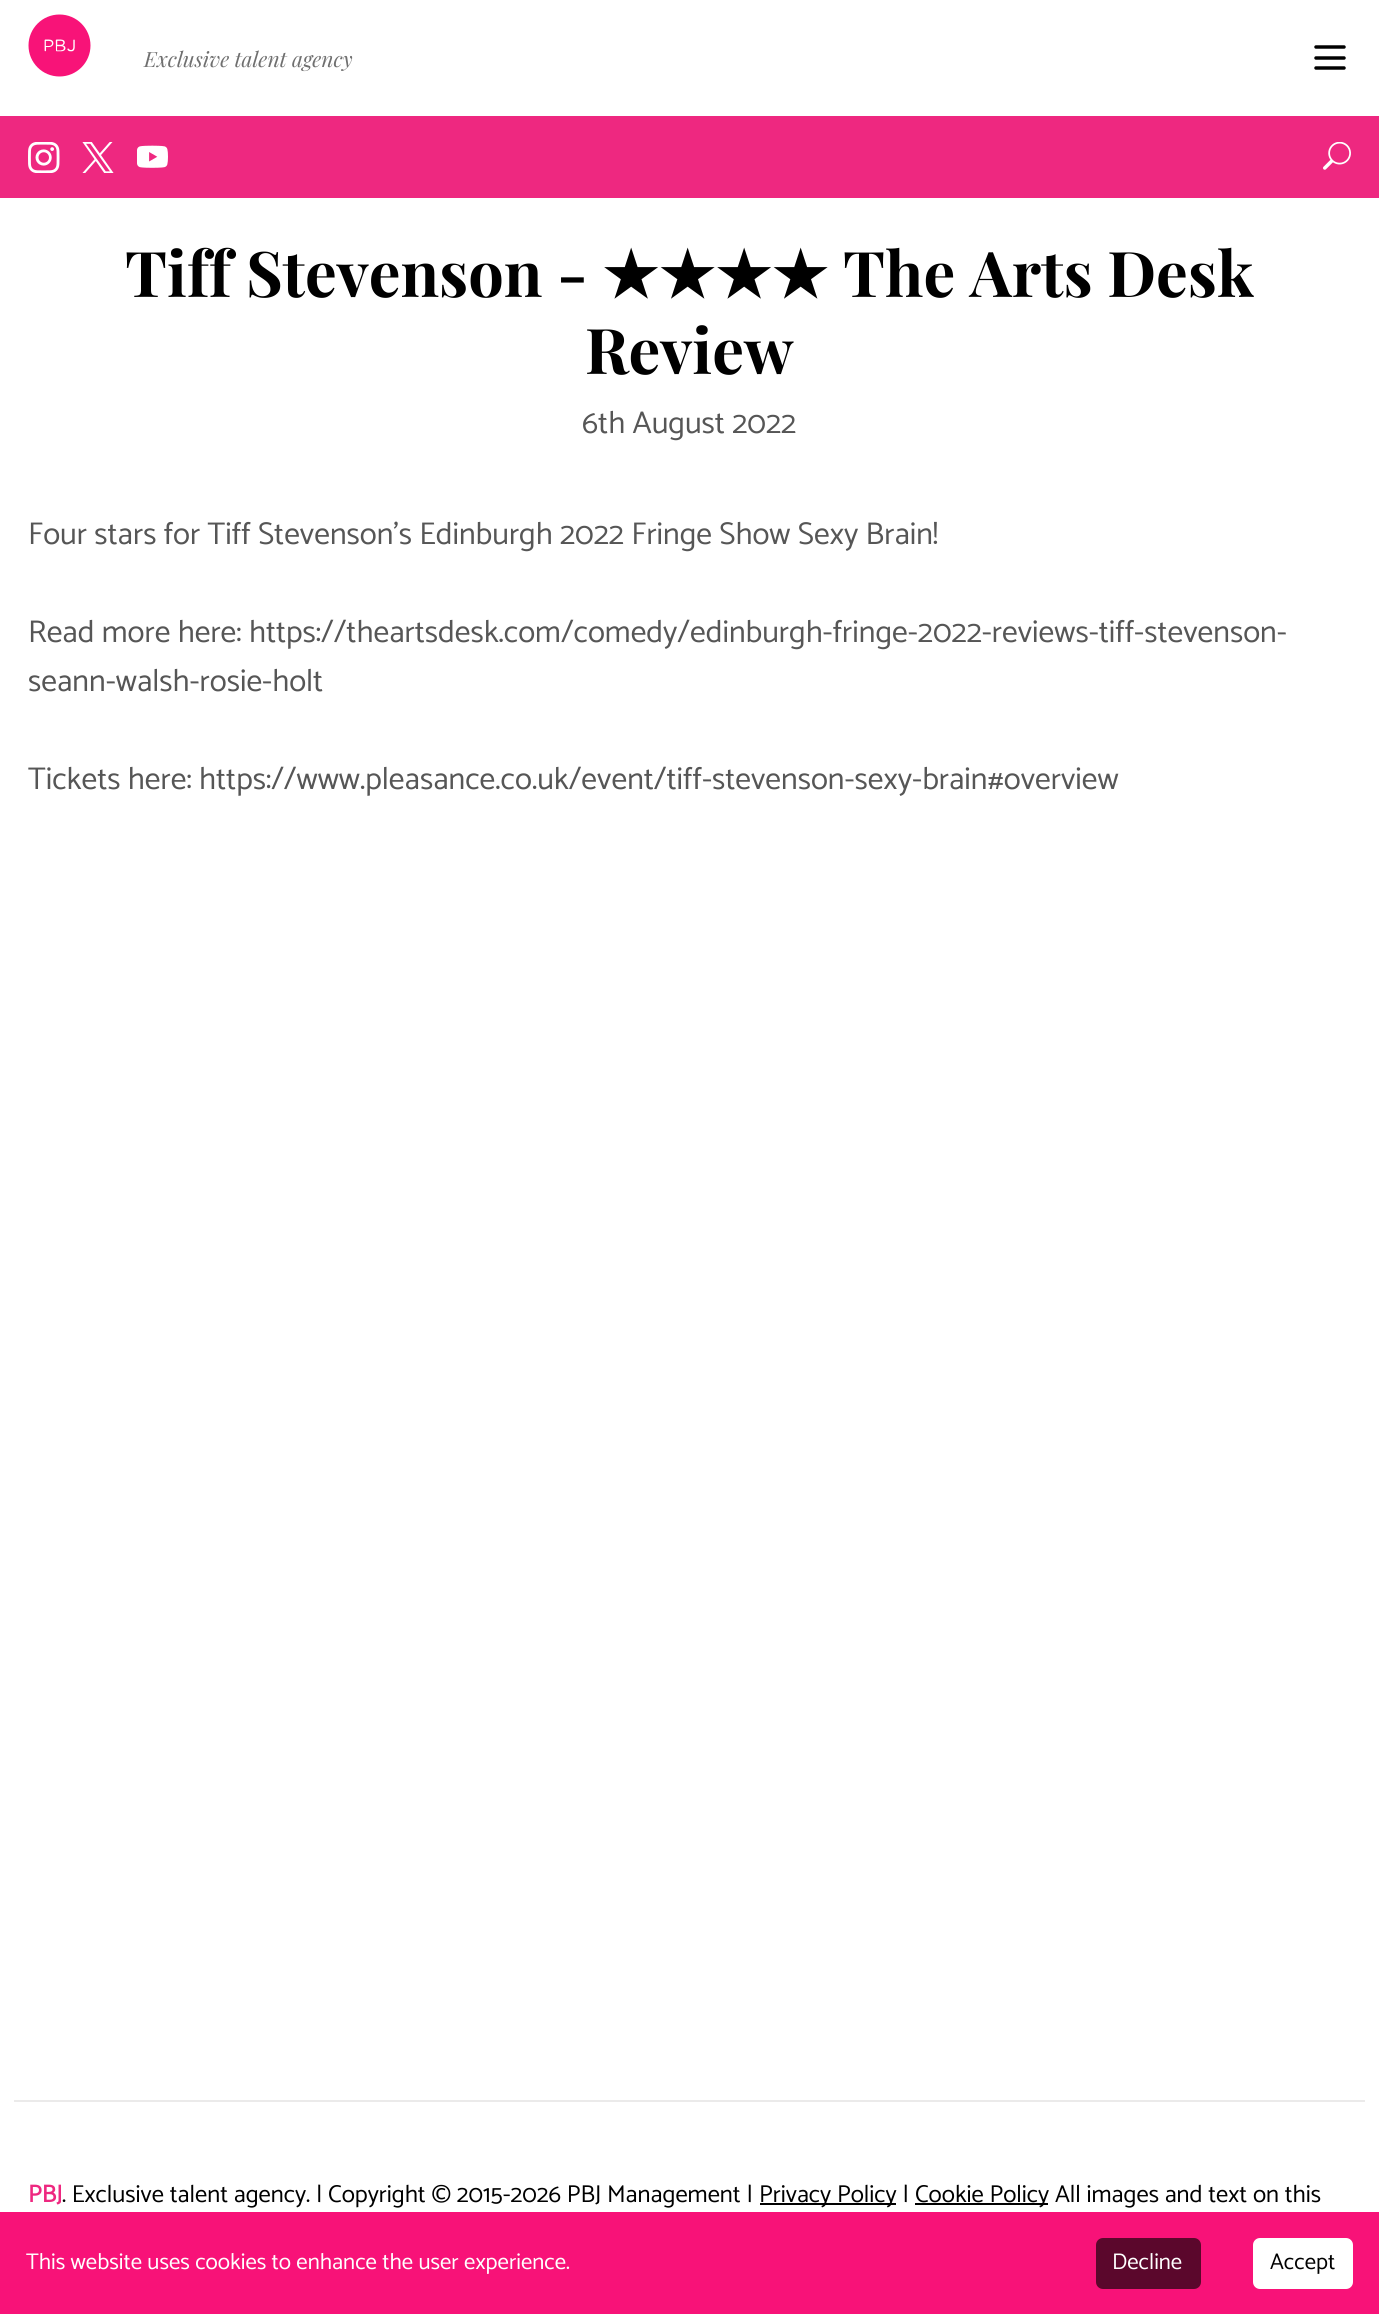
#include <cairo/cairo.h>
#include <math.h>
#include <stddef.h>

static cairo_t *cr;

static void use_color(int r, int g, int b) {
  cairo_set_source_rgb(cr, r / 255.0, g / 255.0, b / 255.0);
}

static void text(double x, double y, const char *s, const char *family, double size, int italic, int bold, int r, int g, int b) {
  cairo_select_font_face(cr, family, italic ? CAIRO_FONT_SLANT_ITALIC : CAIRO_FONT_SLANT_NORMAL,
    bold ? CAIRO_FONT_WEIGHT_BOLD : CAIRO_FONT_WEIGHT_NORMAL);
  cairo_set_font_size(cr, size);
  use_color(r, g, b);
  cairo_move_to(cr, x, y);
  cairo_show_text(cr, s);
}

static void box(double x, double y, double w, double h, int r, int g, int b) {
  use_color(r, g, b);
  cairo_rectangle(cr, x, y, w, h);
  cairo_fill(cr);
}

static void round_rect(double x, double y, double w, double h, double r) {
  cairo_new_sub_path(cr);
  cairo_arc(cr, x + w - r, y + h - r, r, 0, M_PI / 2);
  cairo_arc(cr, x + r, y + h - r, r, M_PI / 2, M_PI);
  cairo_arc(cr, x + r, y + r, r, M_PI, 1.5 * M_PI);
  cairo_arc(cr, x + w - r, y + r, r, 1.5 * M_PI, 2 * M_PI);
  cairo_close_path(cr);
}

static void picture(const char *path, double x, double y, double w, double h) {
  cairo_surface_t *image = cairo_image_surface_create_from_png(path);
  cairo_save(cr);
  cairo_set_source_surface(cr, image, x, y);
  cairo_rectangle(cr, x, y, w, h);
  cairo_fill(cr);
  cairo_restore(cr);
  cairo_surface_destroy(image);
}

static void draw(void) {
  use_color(255, 255, 255);
  cairo_paint(cr);
  picture("img_01.png", 28, 14, 63, 63);
  cairo_new_path(cr);
  cairo_move_to(cr, 1316, 47);
  cairo_line_to(cr, 1344, 47);
  cairo_move_to(cr, 1316, 58);
  cairo_line_to(cr, 1344, 58);
  cairo_move_to(cr, 1316, 68);
  cairo_line_to(cr, 1344, 68);
  use_color(0, 0, 0);
  cairo_set_line_width(cr, 3.5);
  cairo_set_line_cap(cr, CAIRO_LINE_CAP_ROUND);
  cairo_set_line_join(cr, CAIRO_LINE_JOIN_ROUND);
  cairo_stroke(cr);
  box(0, 116, 1379, 82, 238, 40, 128);
  picture("img_02.png", 28, 142, 32, 31);
  picture("img_03.png", 82, 142, 32, 31);
  picture("img_04.png", 137, 145, 31, 23);
  picture("img_05.png", 1323, 142, 28, 28);
  box(14, 2100, 1351, 2, 235, 234, 234);
  box(760, 2203, 136, 2, 0, 0, 0);
  box(915, 2203, 133, 2, 0, 0, 0);
  box(0, 2212, 1379, 102, 248, 18, 120);
  use_color(91, 7, 44);
  round_rect(1096, 2238, 105, 51, 7);
  cairo_fill(cr);
  use_color(255, 255, 255);
  round_rect(1253, 2238, 100, 51, 7);
  cairo_fill(cr);
  text(144, 67, "Exclusive talent agency", "Playfair Display", 21, 1, 0, 111, 111, 111);
  text(125, 297, "Tiff Stevenson -", "Playfair Display", 63, 0, 1, 0, 0, 0);
  text(602, 297, "★★★★", "DejaVu Sans", 63, 0, 1, 0, 0, 0);
  text(843, 297, "The Arts Desk", "Playfair Display", 63, 0, 1, 0, 0, 0);
  text(585, 374, "Review", "Playfair Display", 63, 0, 1, 0, 0, 0);
  text(582, 433, "6th August 2022", "Catamaran", 31.5, 0, 0, 86, 86, 86);
  text(28, 544, "Four stars for Tiff Stevenson's Edinburgh 2022 Fringe Show Sexy Brain!", "Catamaran", 31.5, 0, 0, 86, 86, 86);
  text(28, 642, "Read more here: https://theartsdesk.com/comedy/edinburgh-fringe-2022-reviews-tiff-stevenson-", "Catamaran", 31.5, 0, 0, 86, 86, 86);
  text(28, 691, "seann-walsh-rosie-holt", "Catamaran", 31.5, 0, 0, 86, 86, 86);
  text(28, 789, "Tickets here: https://www.pleasance.co.uk/event/tiff-stevenson-sexy-brain#overview", "Catamaran", 31.5, 0, 0, 86, 86, 86);
  text(28, 2202, "PBJ", "Catamaran", 24.5, 0, 1, 238, 40, 128);
  text(62, 2202, ". Exclusive talent agency. | Copyright © 2015-2026 PBJ Management |", "Catamaran", 24.5, 0, 0, 0, 0, 0);
  text(759, 2202, "Privacy Policy |", "Catamaran", 24.5, 0, 0, 0, 0, 0);
  text(915, 2202, "Cookie Policy All images and text on this", "Catamaran", 24.5, 0, 0, 0, 0, 0);
  text(26, 2269, "This website uses cookies to enhance the user experience.", "Catamaran", 22.75, 0, 0, 255, 255, 255);
  text(1112, 2269, "Decline", "Catamaran", 22.75, 0, 0, 255, 255, 255);
  text(1270, 2269, "Accept", "Catamaran", 22.75, 0, 0, 0, 0, 0);
}

int main(void) {
  cairo_surface_t *surface = cairo_image_surface_create(CAIRO_FORMAT_RGB24, 1379, 2314);
  cr = cairo_create(surface);
  cairo_font_options_t *options = cairo_font_options_create();
  cairo_font_options_set_hint_metrics(options, CAIRO_HINT_METRICS_OFF);
  cairo_font_options_set_hint_style(options, CAIRO_HINT_STYLE_NONE);
  cairo_set_font_options(cr, options);
  cairo_set_miter_limit(cr, 4);
  draw();
  cairo_surface_write_to_png(surface, "out.png");
  cairo_font_options_destroy(options);
  cairo_destroy(cr);
  cairo_surface_destroy(surface);
  return 0;
}
